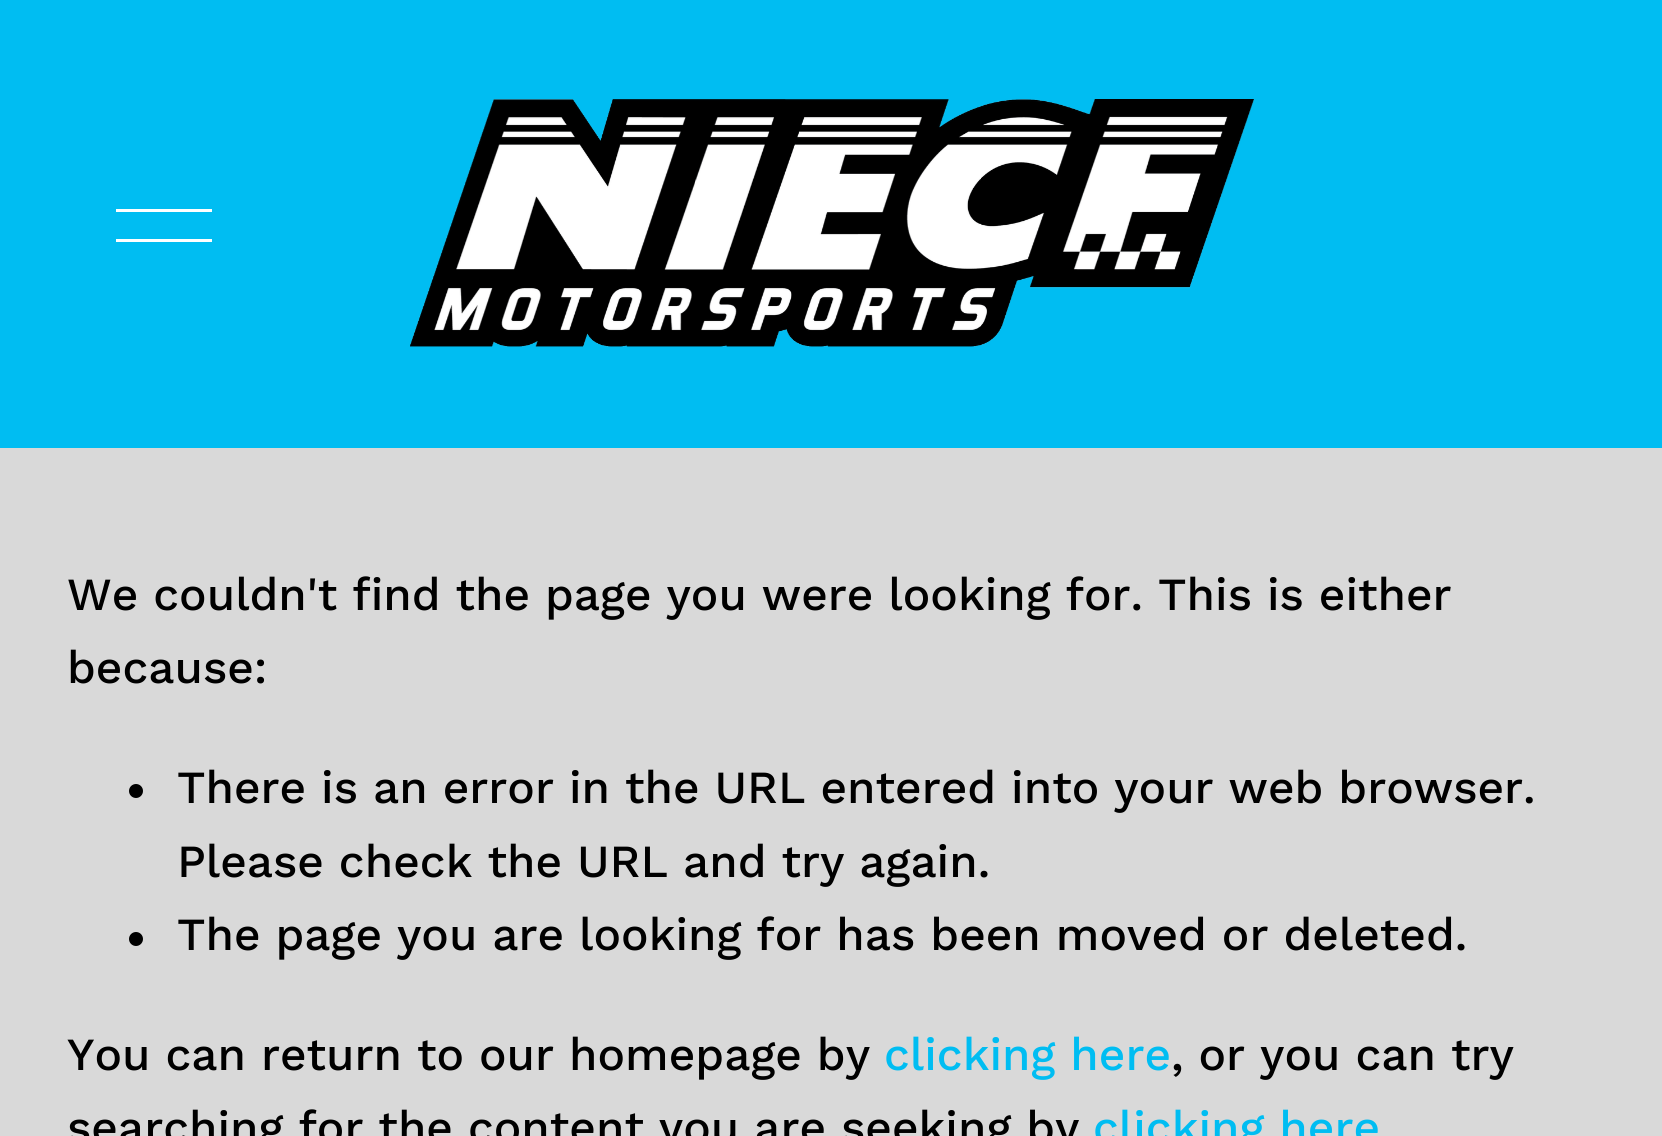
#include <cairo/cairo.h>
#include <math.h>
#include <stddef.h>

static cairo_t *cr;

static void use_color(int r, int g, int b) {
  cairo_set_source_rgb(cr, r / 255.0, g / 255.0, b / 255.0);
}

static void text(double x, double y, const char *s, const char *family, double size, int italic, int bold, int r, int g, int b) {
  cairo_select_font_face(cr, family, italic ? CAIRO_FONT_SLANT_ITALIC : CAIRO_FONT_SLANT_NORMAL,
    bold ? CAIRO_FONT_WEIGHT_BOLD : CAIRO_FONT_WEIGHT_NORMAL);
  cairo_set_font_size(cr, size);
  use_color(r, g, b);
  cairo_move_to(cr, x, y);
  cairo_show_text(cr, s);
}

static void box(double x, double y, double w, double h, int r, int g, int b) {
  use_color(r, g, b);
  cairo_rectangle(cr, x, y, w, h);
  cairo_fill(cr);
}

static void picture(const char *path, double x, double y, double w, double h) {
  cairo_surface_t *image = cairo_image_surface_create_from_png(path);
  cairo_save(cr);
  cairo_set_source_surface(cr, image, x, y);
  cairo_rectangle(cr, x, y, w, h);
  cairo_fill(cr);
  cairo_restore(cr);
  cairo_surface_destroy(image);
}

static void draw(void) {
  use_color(217, 217, 217);
  cairo_paint(cr);
  box(0, 0, 1662, 448, 0, 189, 242);
  box(116, 209, 96, 3, 255, 255, 255);
  box(116, 239, 96, 3, 255, 255, 255);
  picture("img_01.png", 410, 99, 844, 248);
  use_color(0, 0, 0);
  cairo_arc(cr, 136, 791, 7, 0, 2 * M_PI);
  cairo_fill(cr);
  cairo_arc(cr, 136, 939, 7, 0, 2 * M_PI);
  cairo_fill(cr);
  text(67, 610, "We couldn't find the page you were looking for. This is either", "Work Sans Medium", 46, 0, 0, 0, 0, 0);
  text(67, 683, "because:", "Work Sans Medium", 46, 0, 0, 0, 0, 0);
  text(177, 803, "There is an error in the URL entered into your web browser.", "Work Sans Medium", 46, 0, 0, 0, 0, 0);
  text(177, 877, "Please check the URL and try again.", "Work Sans Medium", 46, 0, 0, 0, 0, 0);
  text(177, 950, "The page you are looking for has been moved or deleted.", "Work Sans Medium", 46, 0, 0, 0, 0, 0);
  text(67, 1070, "You can return to our homepage by", "Work Sans Medium", 46, 0, 0, 0, 0, 0);
  text(884, 1070, "clicking here", "Work Sans Medium", 46, 0, 0, 0, 189, 242);
  text(1171, 1070, ", or you can try", "Work Sans Medium", 46, 0, 0, 0, 0, 0);
  text(67, 1143, "searching for the content you are seeking by", "Work Sans Medium", 46, 0, 0, 0, 0, 0);
  text(1093, 1143, "clicking here", "Work Sans Medium", 46, 0, 0, 0, 189, 242);
}

int main(void) {
  cairo_surface_t *surface = cairo_image_surface_create(CAIRO_FORMAT_RGB24, 1662, 1136);
  cr = cairo_create(surface);
  cairo_font_options_t *options = cairo_font_options_create();
  cairo_font_options_set_hint_metrics(options, CAIRO_HINT_METRICS_OFF);
  cairo_font_options_set_hint_style(options, CAIRO_HINT_STYLE_NONE);
  cairo_set_font_options(cr, options);
  cairo_set_miter_limit(cr, 4);
  draw();
  cairo_surface_write_to_png(surface, "out.png");
  cairo_font_options_destroy(options);
  cairo_destroy(cr);
  cairo_surface_destroy(surface);
  return 0;
}
